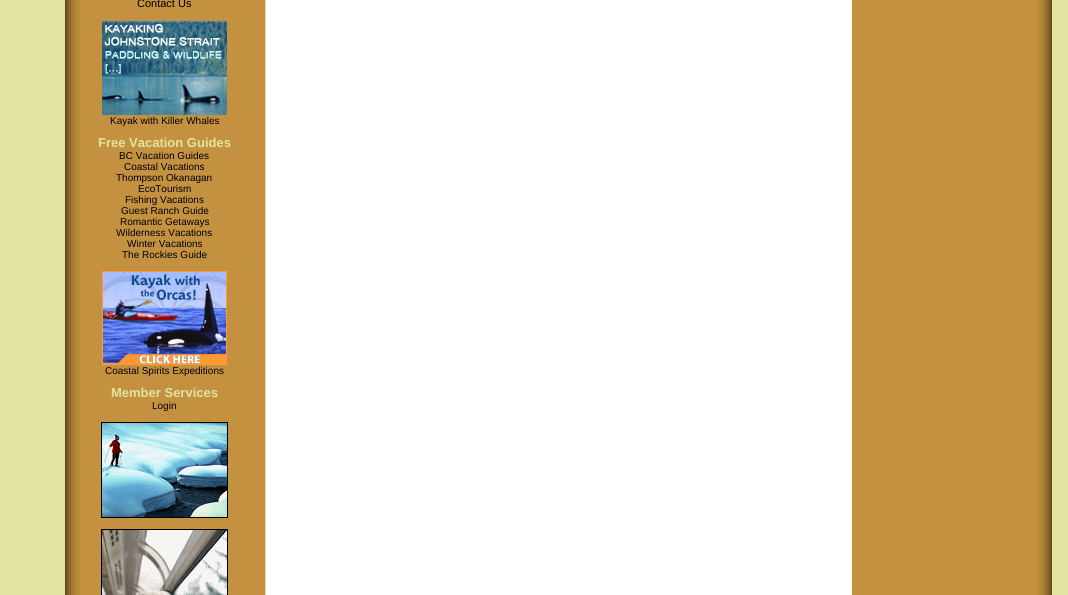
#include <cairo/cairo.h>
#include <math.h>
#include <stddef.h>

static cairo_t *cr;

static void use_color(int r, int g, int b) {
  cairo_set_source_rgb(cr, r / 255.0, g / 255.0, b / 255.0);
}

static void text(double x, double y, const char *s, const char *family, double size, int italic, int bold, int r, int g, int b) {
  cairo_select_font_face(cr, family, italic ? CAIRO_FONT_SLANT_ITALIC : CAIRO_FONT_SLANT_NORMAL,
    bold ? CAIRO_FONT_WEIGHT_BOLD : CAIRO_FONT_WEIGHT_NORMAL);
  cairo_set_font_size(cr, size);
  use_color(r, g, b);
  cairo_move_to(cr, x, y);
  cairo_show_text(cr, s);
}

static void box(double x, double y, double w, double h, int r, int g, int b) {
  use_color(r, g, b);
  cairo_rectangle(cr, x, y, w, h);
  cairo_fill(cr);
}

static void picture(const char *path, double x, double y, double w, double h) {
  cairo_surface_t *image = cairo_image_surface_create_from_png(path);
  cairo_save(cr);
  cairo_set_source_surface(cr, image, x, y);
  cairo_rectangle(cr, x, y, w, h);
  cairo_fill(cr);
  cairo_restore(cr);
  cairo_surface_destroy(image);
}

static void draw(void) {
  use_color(225, 228, 160);
  cairo_paint(cr);
  box(266, 0, 586, 595, 255, 255, 255);
  picture("img_01.png", 64, 0, 202, 595);
  picture("img_02.png", 102, 21, 125, 94);
  picture("img_03.png", 102, 271, 125, 94);
  cairo_rectangle(cr, 101.5, 422.5, 126, 95);
  use_color(0, 0, 0);
  cairo_set_line_width(cr, 1);
  cairo_stroke(cr);
  picture("img_04.png", 102, 423, 125, 94);
  cairo_rectangle(cr, 101.5, 529.5, 126, 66);
  cairo_stroke(cr);
  picture("img_05.png", 102, 530, 125, 65);
  picture("img_06.png", 852, 0, 200, 595);
  text(137, 7, "Contact Us", "Liberation Sans", 11, 0, 0, 0, 0, 0);
  text(110, 124, "Kayak with Killer Whales", "Liberation Sans", 10, 0, 0, 0, 0, 0);
  text(98, 147, "Free Vacation Guides", "Liberation Sans", 13, 0, 1, 225, 228, 160);
  text(119, 159, "BC Vacation Guides", "Liberation Sans", 10, 0, 0, 0, 0, 0);
  text(124, 170, "Coastal Vacations", "Liberation Sans", 10, 0, 0, 0, 0, 0);
  text(116, 181, "Thompson Okanagan", "Liberation Sans", 10, 0, 0, 0, 0, 0);
  text(138, 192, "EcoTourism", "Liberation Sans", 10, 0, 0, 0, 0, 0);
  text(125, 203, "Fishing Vacations", "Liberation Sans", 10, 0, 0, 0, 0, 0);
  text(121, 214, "Guest Ranch Guide", "Liberation Sans", 10, 0, 0, 0, 0, 0);
  text(120, 225, "Romantic Getaways", "Liberation Sans", 10, 0, 0, 0, 0, 0);
  text(116, 236, "Wilderness Vacations", "Liberation Sans", 10, 0, 0, 0, 0, 0);
  text(127, 247, "Winter Vacations", "Liberation Sans", 10, 0, 0, 0, 0, 0);
  text(122, 258, "The Rockies Guide", "Liberation Sans", 10, 0, 0, 0, 0, 0);
  text(105, 374, "Coastal Spirits Expeditions", "Liberation Sans", 10, 0, 0, 0, 0, 0);
  text(111, 397, "Member Services", "Liberation Sans", 13, 0, 1, 225, 228, 160);
  text(152, 409, "Login", "Liberation Sans", 10, 0, 0, 0, 0, 0);
}

int main(void) {
  cairo_surface_t *surface = cairo_image_surface_create(CAIRO_FORMAT_RGB24, 1068, 595);
  cr = cairo_create(surface);
  cairo_font_options_t *options = cairo_font_options_create();
  cairo_font_options_set_hint_metrics(options, CAIRO_HINT_METRICS_OFF);
  cairo_font_options_set_hint_style(options, CAIRO_HINT_STYLE_NONE);
  cairo_set_font_options(cr, options);
  cairo_set_miter_limit(cr, 4);
  draw();
  cairo_surface_write_to_png(surface, "out.png");
  cairo_font_options_destroy(options);
  cairo_destroy(cr);
  cairo_surface_destroy(surface);
  return 0;
}
